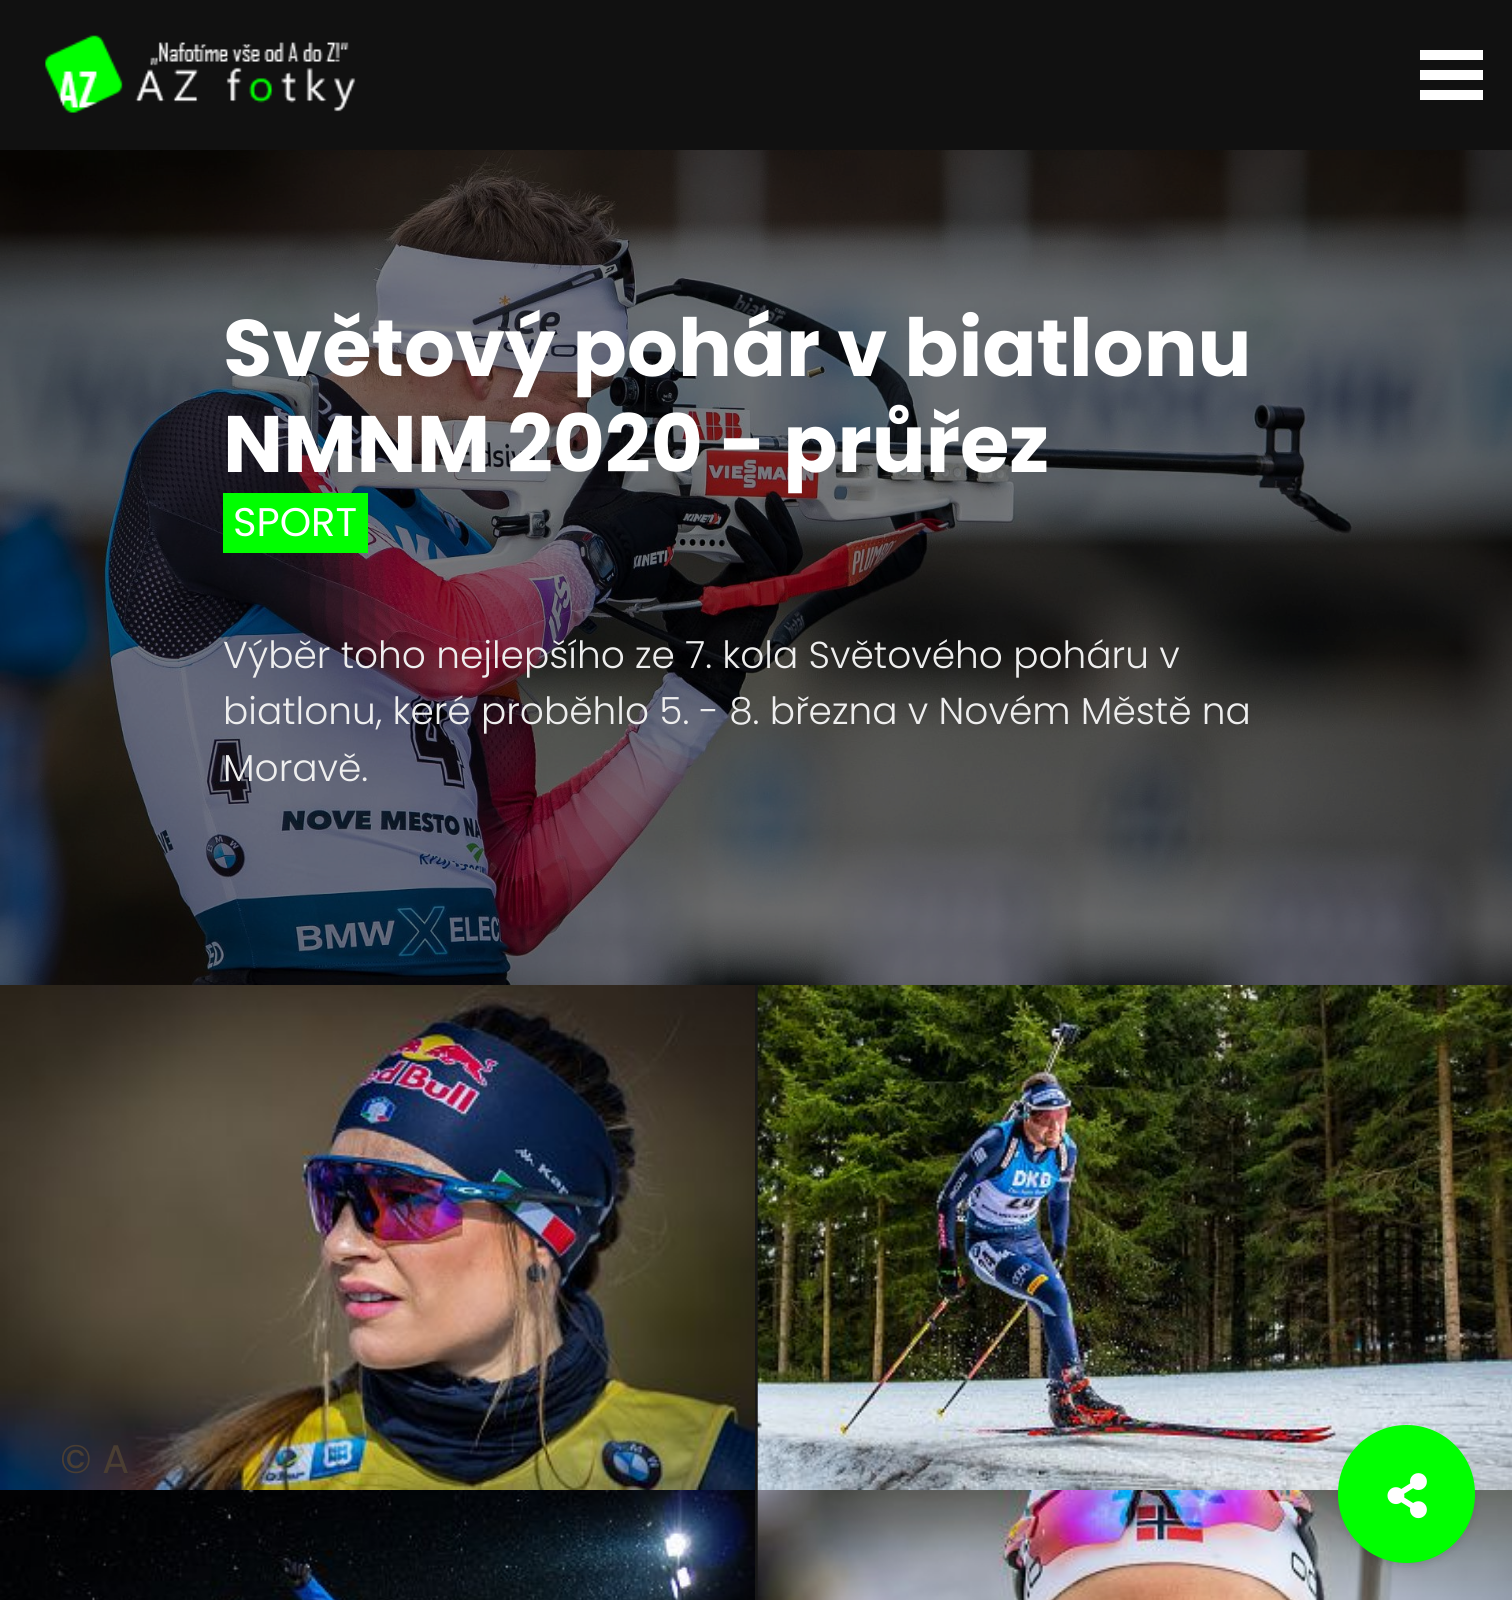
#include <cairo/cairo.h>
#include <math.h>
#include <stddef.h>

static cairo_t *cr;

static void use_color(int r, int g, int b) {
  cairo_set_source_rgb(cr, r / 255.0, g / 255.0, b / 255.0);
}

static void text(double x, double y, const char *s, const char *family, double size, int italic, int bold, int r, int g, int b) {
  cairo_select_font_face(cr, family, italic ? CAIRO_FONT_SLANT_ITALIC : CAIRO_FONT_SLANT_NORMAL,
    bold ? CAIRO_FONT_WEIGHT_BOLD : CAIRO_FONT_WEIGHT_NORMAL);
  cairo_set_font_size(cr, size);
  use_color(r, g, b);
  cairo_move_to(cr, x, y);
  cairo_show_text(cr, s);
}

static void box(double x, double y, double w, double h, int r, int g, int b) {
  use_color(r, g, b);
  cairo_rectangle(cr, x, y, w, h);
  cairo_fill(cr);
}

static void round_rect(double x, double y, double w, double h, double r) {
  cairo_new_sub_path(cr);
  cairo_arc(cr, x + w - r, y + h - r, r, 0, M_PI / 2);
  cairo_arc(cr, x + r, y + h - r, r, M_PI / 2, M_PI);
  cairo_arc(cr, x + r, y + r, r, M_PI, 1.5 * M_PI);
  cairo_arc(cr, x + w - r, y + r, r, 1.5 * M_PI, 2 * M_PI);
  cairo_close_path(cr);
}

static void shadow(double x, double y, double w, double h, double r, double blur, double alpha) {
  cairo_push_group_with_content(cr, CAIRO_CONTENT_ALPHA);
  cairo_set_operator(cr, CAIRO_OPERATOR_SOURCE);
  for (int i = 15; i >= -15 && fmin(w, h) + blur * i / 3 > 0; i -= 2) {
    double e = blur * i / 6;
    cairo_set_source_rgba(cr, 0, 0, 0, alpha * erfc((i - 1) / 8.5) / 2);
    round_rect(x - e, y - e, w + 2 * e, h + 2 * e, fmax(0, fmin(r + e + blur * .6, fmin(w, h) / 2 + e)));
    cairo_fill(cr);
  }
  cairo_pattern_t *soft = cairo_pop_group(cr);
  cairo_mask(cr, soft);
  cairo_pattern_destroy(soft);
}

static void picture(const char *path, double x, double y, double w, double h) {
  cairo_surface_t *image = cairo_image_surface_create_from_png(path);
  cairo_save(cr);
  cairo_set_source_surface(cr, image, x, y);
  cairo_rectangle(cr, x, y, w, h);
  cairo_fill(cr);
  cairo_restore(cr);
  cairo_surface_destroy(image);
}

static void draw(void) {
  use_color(255, 255, 255);
  cairo_paint(cr);
  box(0, 0, 1512, 150, 17, 17, 17);
  picture("img_01.png", 45, 35, 311, 78);
  box(1420, 70, 63, 10, 255, 255, 255);
  box(1420, 50, 63, 10, 255, 255, 255);
  box(1420, 90, 63, 10, 255, 255, 255);
  picture("img_02.png", 0, 150, 1512, 835);
  box(223, 493, 145, 60, 0, 255, 0);
  box(755, 985, 3, 615, 24, 24, 24);
  picture("img_03.png", 0, 985, 755, 505);
  picture("img_04.png", 757, 985, 755, 505);
  picture("img_05.png", 0, 1490, 755, 110);
  picture("img_06.png", 757, 1490, 755, 110);
  use_color(0, 0, 0);
  shadow(1343, 1435, 127, 128, 63.5, 6, 0.25);
  use_color(0, 255, 0);
  round_rect(1338, 1425, 137, 138, 68.5);
  cairo_fill(cr);
  picture("img_07.png", 1387, 1473, 40, 46);
  text(223, 376, "Světový pohár v biatlonu", "Poppins", 80, 0, 1, 255, 255, 255);
  text(223, 472, "NMNM 2020 - průřez", "Poppins", 80, 0, 1, 255, 255, 255);
  text(233, 536, "SPORT", "Poppins", 40, 0, 0, 255, 255, 255);
  text(223, 668, "Výběr toho nejlepšího ze 7. kola Světového poháru v", "Poppins Light", 37.5, 0, 0, 238, 238, 238);
  text(223, 724, "biatlonu, keré proběhlo 5. - 8. března v Novém Městě na", "Poppins Light", 37.5, 0, 0, 238, 238, 238);
  text(223, 781, "Moravě.", "Poppins Light", 37.5, 0, 0, 238, 238, 238);
  text(60, 1473, "© A", "Poppins", 40, 0, 0, 74, 62, 50);
}

int main(void) {
  cairo_surface_t *surface = cairo_image_surface_create(CAIRO_FORMAT_RGB24, 1512, 1600);
  cr = cairo_create(surface);
  cairo_font_options_t *options = cairo_font_options_create();
  cairo_font_options_set_hint_metrics(options, CAIRO_HINT_METRICS_OFF);
  cairo_font_options_set_hint_style(options, CAIRO_HINT_STYLE_NONE);
  cairo_set_font_options(cr, options);
  cairo_set_miter_limit(cr, 4);
  draw();
  cairo_surface_write_to_png(surface, "out.png");
  cairo_font_options_destroy(options);
  cairo_destroy(cr);
  cairo_surface_destroy(surface);
  return 0;
}
